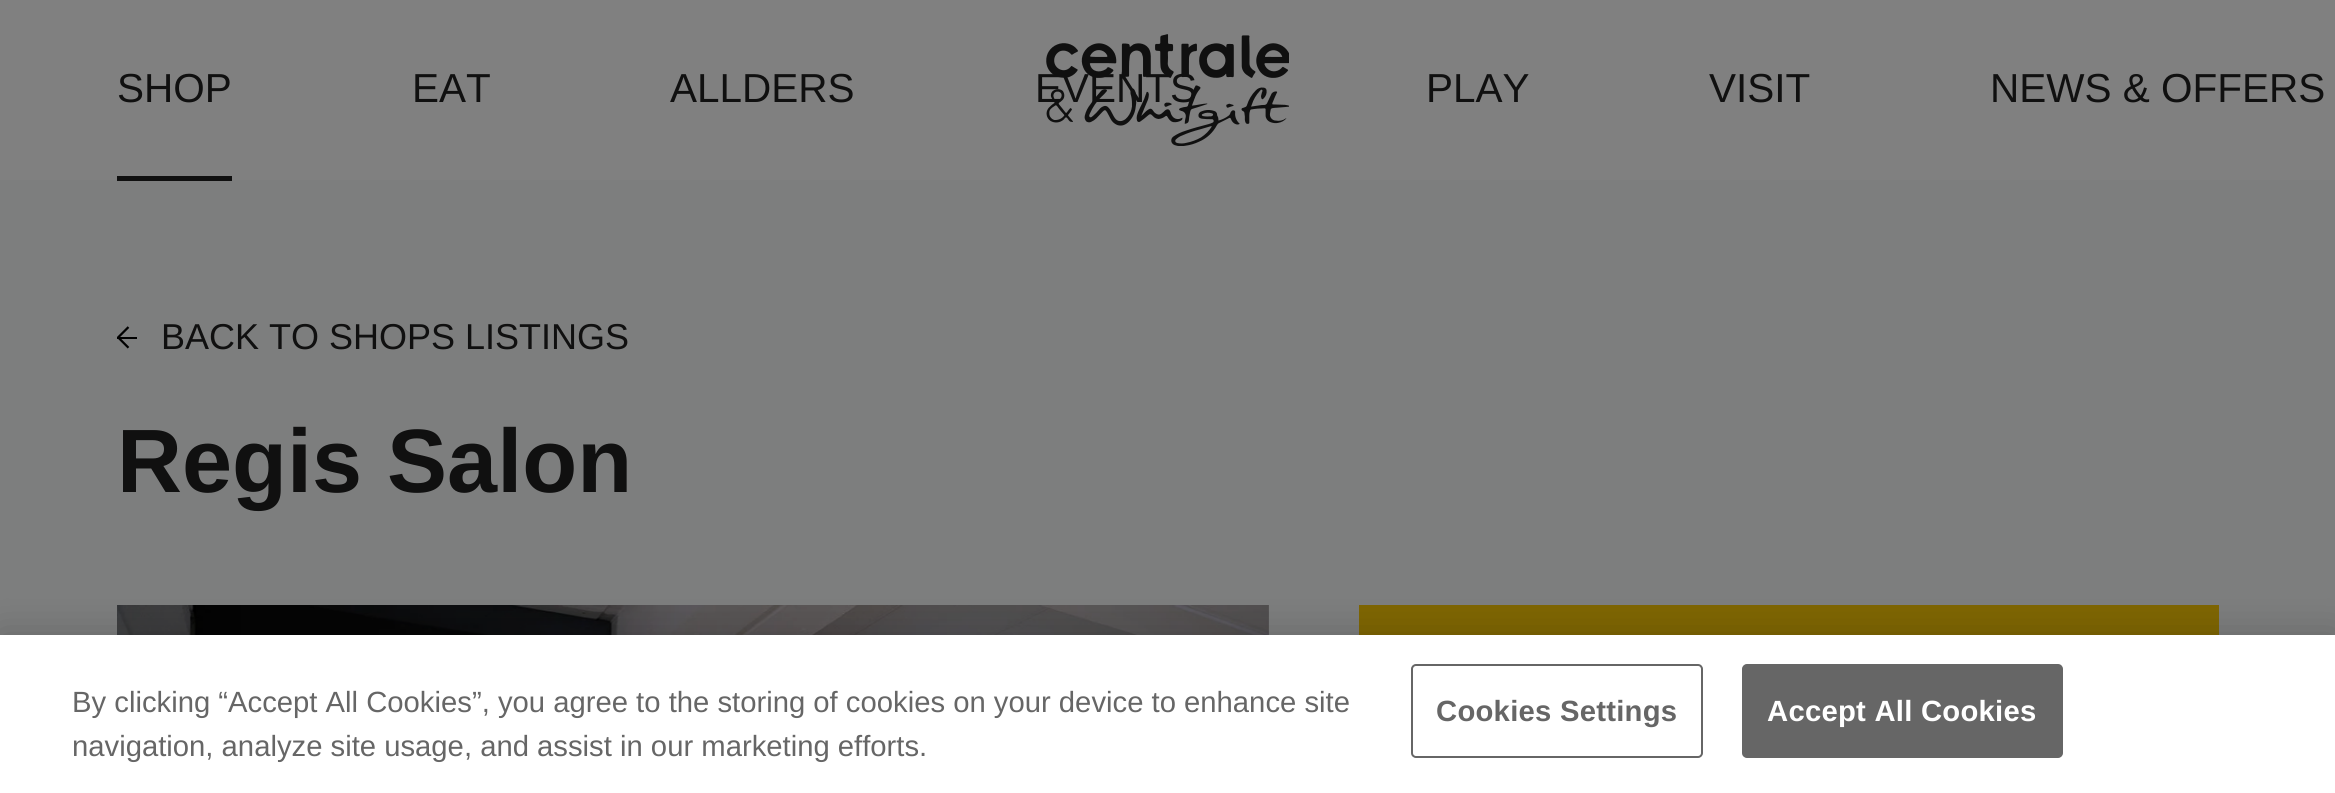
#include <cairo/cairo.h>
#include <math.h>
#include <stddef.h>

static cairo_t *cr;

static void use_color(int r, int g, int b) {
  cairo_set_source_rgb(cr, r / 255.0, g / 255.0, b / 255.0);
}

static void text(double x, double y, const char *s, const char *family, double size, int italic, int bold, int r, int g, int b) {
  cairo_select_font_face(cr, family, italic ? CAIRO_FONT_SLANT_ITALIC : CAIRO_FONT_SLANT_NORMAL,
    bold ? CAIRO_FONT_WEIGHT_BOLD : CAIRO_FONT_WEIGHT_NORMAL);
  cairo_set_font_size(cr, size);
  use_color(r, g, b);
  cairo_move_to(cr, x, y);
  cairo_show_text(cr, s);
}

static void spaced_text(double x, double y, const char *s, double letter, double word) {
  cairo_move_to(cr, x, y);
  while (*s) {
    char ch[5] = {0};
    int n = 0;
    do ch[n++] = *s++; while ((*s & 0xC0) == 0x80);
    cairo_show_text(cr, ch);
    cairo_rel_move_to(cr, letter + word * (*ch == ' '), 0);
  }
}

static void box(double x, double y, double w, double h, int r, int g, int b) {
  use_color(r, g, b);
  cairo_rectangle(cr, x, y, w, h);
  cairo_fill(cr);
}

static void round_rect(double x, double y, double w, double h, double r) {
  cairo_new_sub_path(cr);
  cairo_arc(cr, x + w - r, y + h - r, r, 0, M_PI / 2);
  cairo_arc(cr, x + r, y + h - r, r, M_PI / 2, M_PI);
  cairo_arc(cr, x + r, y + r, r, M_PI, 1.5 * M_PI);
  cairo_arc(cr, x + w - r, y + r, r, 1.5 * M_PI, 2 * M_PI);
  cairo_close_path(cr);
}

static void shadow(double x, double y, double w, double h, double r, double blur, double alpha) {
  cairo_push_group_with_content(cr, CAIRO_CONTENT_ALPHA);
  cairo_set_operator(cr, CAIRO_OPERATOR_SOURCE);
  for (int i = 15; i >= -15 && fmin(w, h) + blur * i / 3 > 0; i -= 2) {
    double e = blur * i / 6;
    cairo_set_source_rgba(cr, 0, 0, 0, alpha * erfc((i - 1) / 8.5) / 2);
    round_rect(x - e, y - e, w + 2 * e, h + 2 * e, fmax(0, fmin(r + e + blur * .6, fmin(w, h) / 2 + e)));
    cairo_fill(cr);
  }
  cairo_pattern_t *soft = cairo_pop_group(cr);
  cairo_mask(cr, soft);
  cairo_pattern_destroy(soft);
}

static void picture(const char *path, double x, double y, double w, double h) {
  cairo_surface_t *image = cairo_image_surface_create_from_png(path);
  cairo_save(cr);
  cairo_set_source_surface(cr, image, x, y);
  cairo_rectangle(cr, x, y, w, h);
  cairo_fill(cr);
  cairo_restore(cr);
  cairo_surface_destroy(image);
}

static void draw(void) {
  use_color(125, 126, 126);
  cairo_paint(cr);
  box(0, 0, 2335, 180, 128, 128, 128);
  box(117, 176, 115, 5, 16, 16, 16);
  picture("img_02.png", 117, 326, 20, 23);
  picture("img_03.png", 117, 605, 1152, 30);
  box(1359, 605, 860, 30, 127, 102, 2);
  use_color(0, 0, 0);
  shadow(0, 635, 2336, 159, 0, 20, 0.2);
  box(0, 635, 2335, 158, 255, 255, 255);
  round_rect(1412, 665, 290, 92, 4);
  use_color(102, 102, 102);
  cairo_stroke(cr);
  round_rect(1743, 665, 319, 92, 4);
  cairo_fill_preserve(cr);
  cairo_stroke(cr);
  text(117, 102, "SHOP", "Liberation Sans", 40.5, 0, 0, 16, 16, 16);
  text(412, 102, "EAT", "Liberation Sans", 40.5, 0, 0, 16, 16, 16);
  text(670, 102, "ALLDERS", "Liberation Sans", 40.5, 0, 0, 16, 16, 16);
  text(1035, 102, "EVENTS", "Liberation Sans", 40.5, 0, 0, 16, 16, 16);
  picture("img_01.png", 1046, 34, 243, 112);
  text(1426, 102, "PLAY", "Liberation Sans", 40.5, 0, 0, 16, 16, 16);
  text(1709, 102, "VISIT", "Liberation Sans", 40.5, 0, 0, 16, 16, 16);
  text(1990, 102, "NEWS & OFFERS", "Liberation Sans", 40.5, 0, 0, 16, 16, 16);
  text(161, 349, "BACK TO SHOPS LISTINGS", "Liberation Sans", 36, 0, 0, 16, 16, 16);
  text(117, 492, "Regis Salon", "Liberation Sans", 90, 0, 1, 16, 16, 16);
  text(72, 712, "By clicking “Accept All Cookies”, you agree to the storing of cookies on your device to enhance site", "Liberation Sans", 29.25, 0, 0, 102, 102, 102);
  text(72, 756, "navigation, analyze site usage, and assist in our marketing efforts.", "Liberation Sans", 29.25, 0, 0, 102, 102, 102);
  cairo_select_font_face(cr, "Liberation Sans", CAIRO_FONT_SLANT_NORMAL, CAIRO_FONT_WEIGHT_BOLD);
  spaced_text(1436, 721, "Cookies Settings", 0.25, 0);
  use_color(255, 255, 255);
  spaced_text(1767, 721, "Accept All Cookies", 0.25, 0);
}

int main(void) {
  cairo_surface_t *surface = cairo_image_surface_create(CAIRO_FORMAT_RGB24, 2335, 793);
  cr = cairo_create(surface);
  cairo_font_options_t *options = cairo_font_options_create();
  cairo_font_options_set_hint_metrics(options, CAIRO_HINT_METRICS_OFF);
  cairo_font_options_set_hint_style(options, CAIRO_HINT_STYLE_NONE);
  cairo_set_font_options(cr, options);
  cairo_set_miter_limit(cr, 4);
  draw();
  cairo_surface_write_to_png(surface, "out.png");
  cairo_font_options_destroy(options);
  cairo_destroy(cr);
  cairo_surface_destroy(surface);
  return 0;
}
